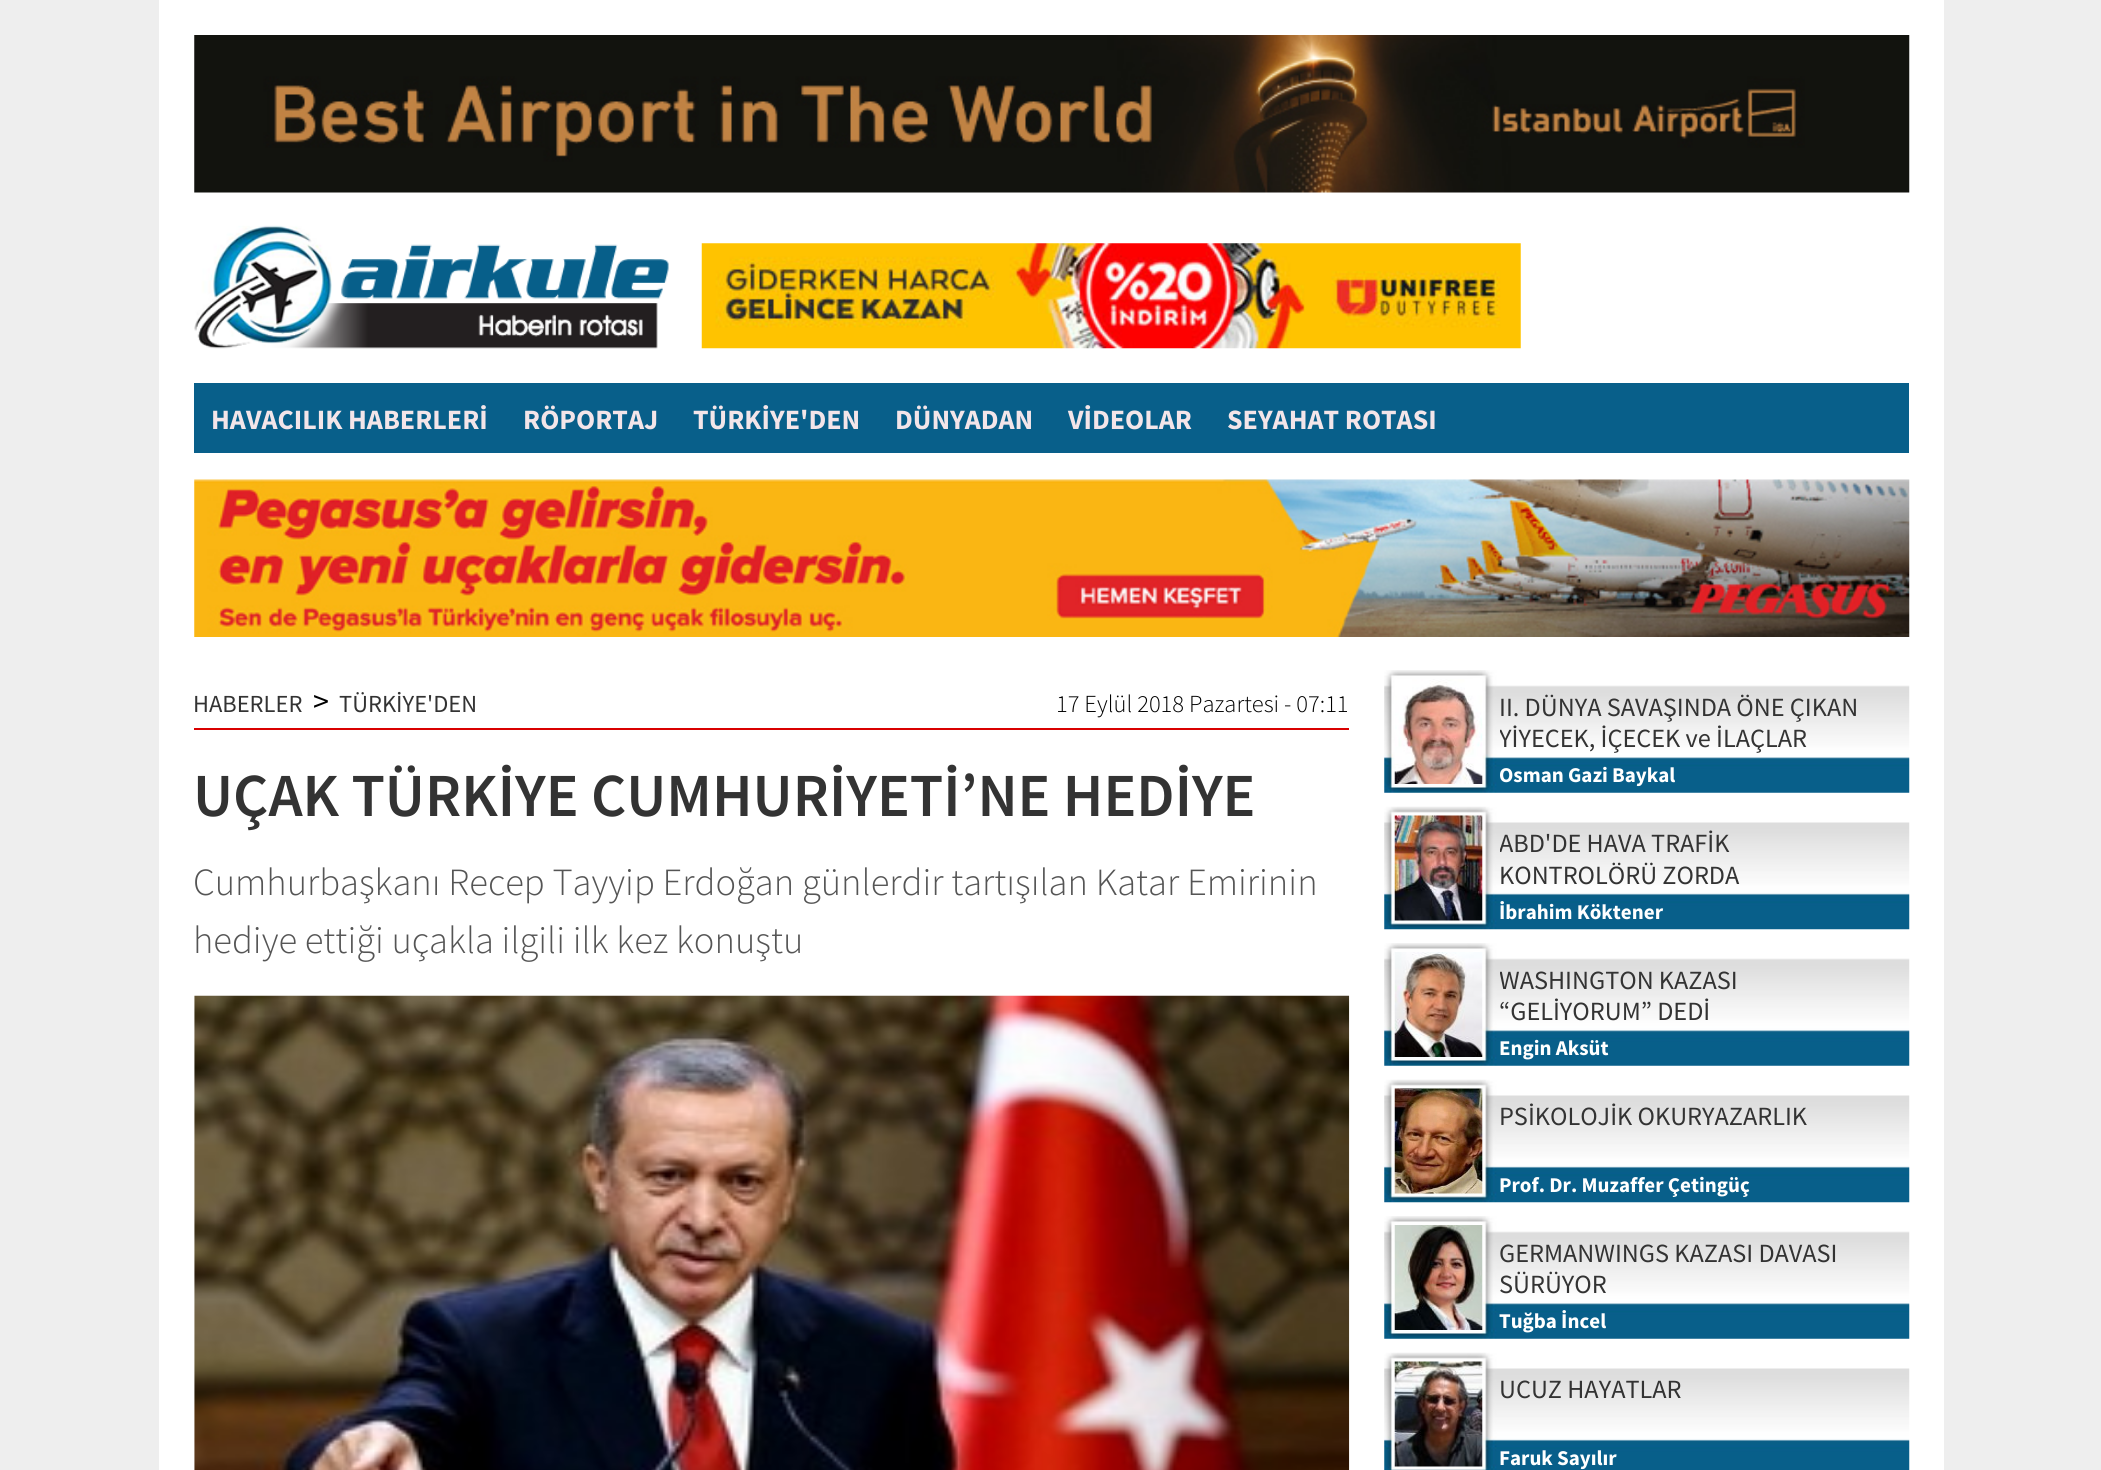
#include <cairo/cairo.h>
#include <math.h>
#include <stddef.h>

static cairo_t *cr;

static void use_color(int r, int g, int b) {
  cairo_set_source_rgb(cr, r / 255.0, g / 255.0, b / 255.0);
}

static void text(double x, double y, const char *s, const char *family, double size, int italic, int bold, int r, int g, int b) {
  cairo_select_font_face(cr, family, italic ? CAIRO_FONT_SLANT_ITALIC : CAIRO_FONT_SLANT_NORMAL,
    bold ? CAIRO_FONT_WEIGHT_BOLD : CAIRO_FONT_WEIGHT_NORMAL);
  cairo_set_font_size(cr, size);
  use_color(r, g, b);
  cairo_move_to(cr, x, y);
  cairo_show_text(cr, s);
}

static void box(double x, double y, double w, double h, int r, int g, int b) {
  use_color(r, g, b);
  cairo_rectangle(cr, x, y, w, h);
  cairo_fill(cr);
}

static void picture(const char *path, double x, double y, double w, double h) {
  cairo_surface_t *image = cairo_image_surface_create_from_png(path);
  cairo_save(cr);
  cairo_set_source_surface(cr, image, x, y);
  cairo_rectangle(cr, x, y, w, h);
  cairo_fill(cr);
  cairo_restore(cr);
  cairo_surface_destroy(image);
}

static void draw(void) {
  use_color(238, 238, 238);
  cairo_paint(cr);
  box(159, 0, 1785, 1470, 255, 255, 255);
  picture("img_01.png", 194, 35, 1716, 158);
  picture("img_02.png", 194, 225, 475, 124);
  picture("img_03.png", 701, 243, 820, 106);
  box(194, 383, 1715, 70, 8, 95, 138);
  picture("img_04.png", 194, 479, 1716, 158);
  box(194, 728, 1155, 2, 217, 0, 0);
  picture("img_05.png", 194, 995, 1156, 475);
  picture("img_06.png", 1384, 670, 526, 123);
  picture("img_07.png", 1394, 679, 89, 105);
  picture("img_08.png", 1384, 806, 526, 124);
  picture("img_09.png", 1394, 815, 89, 106);
  picture("img_06.png", 1384, 943, 526, 123);
  picture("img_10.png", 1394, 952, 89, 105);
  picture("img_08.png", 1384, 1079, 526, 124);
  picture("img_11.png", 1394, 1088, 89, 106);
  picture("img_06.png", 1384, 1216, 526, 123);
  picture("img_12.png", 1394, 1225, 89, 105);
  picture("img_13.png", 1384, 1352, 526, 118);
  picture("img_14.png", 1394, 1361, 89, 106);
  text(211, 429, "HAVACILIK HABERLERİ", "Source Sans Pro", 28, 0, 1, 243, 229, 233);
  text(523, 429, "RÖPORTAJ", "Source Sans Pro", 28, 0, 1, 243, 229, 233);
  text(693, 429, "TÜRKİYE'DEN", "Source Sans Pro", 28, 0, 1, 243, 229, 233);
  text(895, 429, "DÜNYADAN", "Source Sans Pro", 28, 0, 1, 243, 229, 233);
  text(1068, 429, "VİDEOLAR", "Source Sans Pro", 28, 0, 1, 243, 229, 233);
  text(1227, 429, "SEYAHAT ROTASI", "Source Sans Pro", 28, 0, 1, 243, 229, 233);
  text(193, 712, "HABERLER", "Source Sans Pro", 24.5, 0, 0, 51, 51, 51);
  text(313, 712, ">", "Source Sans Pro", 32, 0, 0, 0, 0, 0);
  text(339, 712, "TÜRKİYE'DEN", "Source Sans Pro", 24.5, 0, 0, 51, 51, 51);
  text(1056, 712, "17 Eylül 2018 Pazartesi - 07:11", "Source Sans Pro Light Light", 24.5, 0, 0, 0, 0, 0);
  text(193, 816, "UÇAK TÜRKİYE CUMHURİYETİ’NE HEDİYE", "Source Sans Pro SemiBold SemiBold", 61.25, 0, 0, 51, 51, 51);
  text(193, 895, "Cumhurbaşkanı Recep Tayyip Erdoğan günlerdir tartışılan Katar Emirinin", "Source Sans Pro Light Light", 38.5, 0, 0, 85, 85, 85);
  text(193, 953, "hediye ettiği uçakla ilgili ilk kez konuştu", "Source Sans Pro Light Light", 38.5, 0, 0, 85, 85, 85);
  text(1499, 716, "II. DÜNYA SAVAŞINDA ÖNE ÇIKAN", "Source Sans Pro", 26.25, 0, 0, 51, 51, 51);
  cairo_save(cr);
  cairo_rectangle(cr, 1500, 691, 385, 62);
  cairo_clip(cr);
  text(1499, 747, "YİYECEK, İÇECEK ve İLAÇLAR", "Source Sans Pro", 26.25, 0, 0, 51, 51, 51);
  cairo_restore(cr);
  text(1499, 782, "Osman Gazi Baykal", "Source Sans Pro", 21, 0, 1, 255, 255, 255);
  cairo_save(cr);
  cairo_rectangle(cr, 1500, 828, 385, 61);
  cairo_clip(cr);
  text(1499, 852, "ABD'DE HAVA TRAFİK", "Source Sans Pro", 26.25, 0, 0, 51, 51, 51);
  cairo_restore(cr);
  text(1499, 884, "KONTROLÖRÜ ZORDA", "Source Sans Pro", 26.25, 0, 0, 51, 51, 51);
  text(1499, 919, "İbrahim Köktener", "Source Sans Pro", 21, 0, 1, 255, 255, 255);
  cairo_save(cr);
  cairo_rectangle(cr, 1500, 964, 385, 62);
  cairo_clip(cr);
  text(1499, 989, "WASHINGTON KAZASI", "Source Sans Pro", 26.25, 0, 0, 51, 51, 51);
  cairo_restore(cr);
  text(1499, 1020, "“GELİYORUM” DEDİ", "Source Sans Pro", 26.25, 0, 0, 51, 51, 51);
  text(1499, 1055, "Engin Aksüt", "Source Sans Pro", 21, 0, 1, 255, 255, 255);
  text(1499, 1125, "PSİKOLOJİK OKURYAZARLIK", "Source Sans Pro", 26.25, 0, 0, 51, 51, 51);
  text(1499, 1192, "Prof. Dr. Muzaffer Çetingüç", "Source Sans Pro", 21, 0, 1, 255, 255, 255);
  text(1499, 1262, "GERMANWINGS KAZASI DAVASI", "Source Sans Pro", 26.25, 0, 0, 51, 51, 51);
  text(1499, 1293, "SÜRÜYOR", "Source Sans Pro", 26.25, 0, 0, 51, 51, 51);
  text(1499, 1328, "Tuğba İncel", "Source Sans Pro", 21, 0, 1, 255, 255, 255);
  text(1499, 1398, "UCUZ HAYATLAR", "Source Sans Pro", 26.25, 0, 0, 51, 51, 51);
  text(1499, 1465, "Faruk Sayılır", "Source Sans Pro", 21, 0, 1, 255, 255, 255);
}

int main(void) {
  cairo_surface_t *surface = cairo_image_surface_create(CAIRO_FORMAT_RGB24, 2101, 1470);
  cr = cairo_create(surface);
  cairo_font_options_t *options = cairo_font_options_create();
  cairo_font_options_set_hint_metrics(options, CAIRO_HINT_METRICS_OFF);
  cairo_font_options_set_hint_style(options, CAIRO_HINT_STYLE_NONE);
  cairo_set_font_options(cr, options);
  cairo_set_miter_limit(cr, 4);
  draw();
  cairo_surface_write_to_png(surface, "out.png");
  cairo_font_options_destroy(options);
  cairo_destroy(cr);
  cairo_surface_destroy(surface);
  return 0;
}
